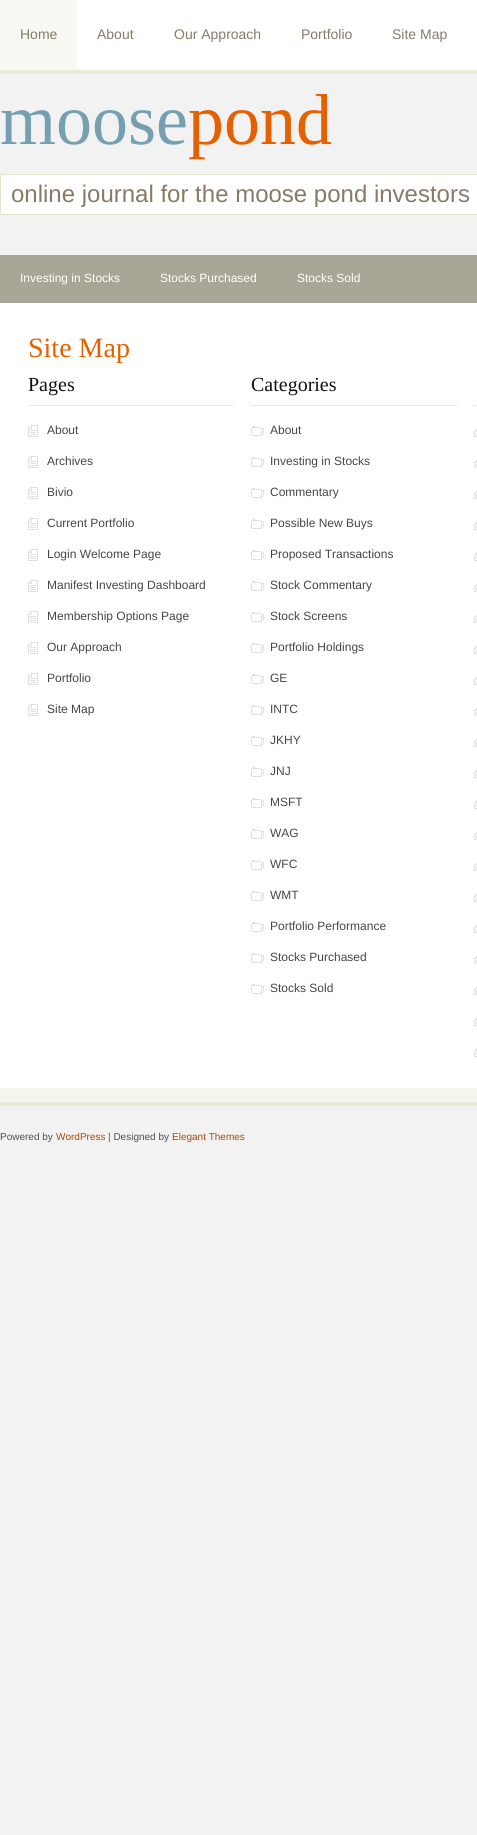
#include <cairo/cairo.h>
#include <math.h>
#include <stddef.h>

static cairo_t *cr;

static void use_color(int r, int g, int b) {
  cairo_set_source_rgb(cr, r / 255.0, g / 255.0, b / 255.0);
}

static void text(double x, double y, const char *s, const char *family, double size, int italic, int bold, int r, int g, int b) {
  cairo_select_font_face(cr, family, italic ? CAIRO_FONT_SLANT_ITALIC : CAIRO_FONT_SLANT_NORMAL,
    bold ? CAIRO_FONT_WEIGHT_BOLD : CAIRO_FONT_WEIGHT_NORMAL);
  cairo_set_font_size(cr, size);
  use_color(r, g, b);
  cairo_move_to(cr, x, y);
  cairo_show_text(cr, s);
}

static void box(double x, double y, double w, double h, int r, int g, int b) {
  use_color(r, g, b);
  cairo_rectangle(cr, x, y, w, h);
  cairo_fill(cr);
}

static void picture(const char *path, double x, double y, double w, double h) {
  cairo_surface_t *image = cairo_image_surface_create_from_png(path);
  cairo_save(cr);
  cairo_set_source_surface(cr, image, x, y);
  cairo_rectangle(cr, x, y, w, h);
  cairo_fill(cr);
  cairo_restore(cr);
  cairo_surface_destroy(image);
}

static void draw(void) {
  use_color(242, 242, 242);
  cairo_paint(cr);
  box(0, 70, 477, 4, 235, 233, 216);
  box(77, 0, 400, 70, 255, 255, 255);
  box(0, 0, 77, 70, 249, 249, 244);
  use_color(255, 255, 255);
  cairo_rectangle(cr, 0.5, 174.5, 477, 40);
  cairo_fill_preserve(cr);
  use_color(229, 229, 207);
  cairo_set_line_width(cr, 1);
  cairo_stroke(cr);
  box(0, 255, 477, 48, 167, 166, 151);
  box(0, 303, 477, 785, 255, 255, 255);
  box(28, 405, 205, 1, 233, 233, 233);
  picture("img_01.png", 28, 425, 10, 12);
  picture("img_01.png", 28, 456, 10, 12);
  picture("img_01.png", 28, 487, 10, 12);
  picture("img_01.png", 28, 518, 10, 12);
  picture("img_01.png", 28, 549, 10, 12);
  picture("img_01.png", 28, 580, 10, 12);
  picture("img_01.png", 28, 611, 10, 12);
  picture("img_01.png", 28, 642, 10, 12);
  picture("img_01.png", 28, 673, 10, 12);
  picture("img_01.png", 28, 704, 10, 12);
  box(251, 405, 206, 1, 233, 233, 233);
  picture("img_02.png", 251, 426, 13, 10);
  picture("img_02.png", 251, 457, 13, 10);
  picture("img_02.png", 251, 488, 13, 10);
  picture("img_02.png", 251, 519, 13, 10);
  picture("img_02.png", 251, 550, 13, 10);
  picture("img_02.png", 251, 581, 13, 10);
  picture("img_02.png", 251, 612, 13, 10);
  picture("img_02.png", 251, 643, 13, 10);
  picture("img_02.png", 251, 674, 13, 10);
  picture("img_02.png", 251, 705, 13, 10);
  picture("img_02.png", 251, 736, 13, 10);
  picture("img_02.png", 251, 767, 13, 10);
  picture("img_02.png", 251, 798, 13, 10);
  picture("img_02.png", 251, 829, 13, 10);
  picture("img_02.png", 251, 860, 13, 10);
  picture("img_02.png", 251, 891, 13, 10);
  picture("img_02.png", 251, 922, 13, 10);
  picture("img_02.png", 251, 953, 13, 10);
  picture("img_02.png", 251, 984, 13, 10);
  box(474, 405, 3, 1, 233, 233, 233);
  picture("img_03.png", 474, 429, 3, 8);
  picture("img_03.png", 474, 460, 3, 8);
  picture("img_03.png", 474, 491, 3, 8);
  picture("img_03.png", 474, 522, 3, 8);
  picture("img_03.png", 474, 553, 3, 8);
  picture("img_03.png", 474, 584, 3, 8);
  picture("img_03.png", 474, 615, 3, 8);
  picture("img_03.png", 474, 646, 3, 8);
  picture("img_03.png", 474, 677, 3, 8);
  picture("img_03.png", 474, 708, 3, 8);
  picture("img_03.png", 474, 739, 3, 8);
  picture("img_03.png", 474, 770, 3, 8);
  picture("img_03.png", 474, 801, 3, 8);
  picture("img_03.png", 474, 832, 3, 8);
  picture("img_03.png", 474, 863, 3, 8);
  picture("img_03.png", 474, 894, 3, 8);
  picture("img_03.png", 474, 925, 3, 8);
  picture("img_03.png", 474, 956, 3, 8);
  picture("img_03.png", 474, 987, 3, 8);
  picture("img_03.png", 474, 1018, 3, 8);
  picture("img_03.png", 474, 1049, 3, 8);
  box(0, 1088, 477, 14, 245, 245, 235);
  box(0, 1102, 477, 4, 233, 233, 217);
  text(20, 39, "Home", "Liberation Sans", 14, 0, 0, 136, 122, 104);
  text(97, 39, "About", "Liberation Sans", 14, 0, 0, 136, 122, 104);
  text(174, 39, "Our Approach", "Liberation Sans", 14, 0, 0, 136, 122, 104);
  text(301, 39, "Portfolio", "Liberation Sans", 14, 0, 0, 136, 122, 104);
  text(392, 39, "Site Map", "Liberation Sans", 14, 0, 0, 136, 122, 104);
  text(0, 144, "moose", "Liberation Serif", 72, 0, 0, 118, 160, 176);
  text(188, 144, "pond", "Liberation Serif", 72, 0, 0, 229, 97, 0);
  text(11, 202, "online journal for the moose pond investors", "Liberation Sans", 24, 0, 0, 136, 122, 104);
  text(20, 282, "Investing in Stocks", "Liberation Sans", 12, 0, 0, 255, 255, 255);
  text(160, 282, "Stocks Purchased", "Liberation Sans", 12, 0, 0, 255, 255, 255);
  text(297, 282, "Stocks Sold", "Liberation Sans", 12, 0, 0, 255, 255, 255);
  text(28, 357, "Site Map", "Liberation Serif", 28, 0, 0, 229, 97, 0);
  text(28, 391, "Pages", "Liberation Serif", 20, 0, 0, 17, 17, 17);
  text(47, 434, "About", "Liberation Sans", 12, 0, 0, 70, 70, 70);
  text(47, 465, "Archives", "Liberation Sans", 12, 0, 0, 70, 70, 70);
  text(47, 496, "Bivio", "Liberation Sans", 12, 0, 0, 70, 70, 70);
  text(47, 527, "Current Portfolio", "Liberation Sans", 12, 0, 0, 70, 70, 70);
  text(47, 558, "Login Welcome Page", "Liberation Sans", 12, 0, 0, 70, 70, 70);
  text(47, 589, "Manifest Investing Dashboard", "Liberation Sans", 12, 0, 0, 70, 70, 70);
  text(47, 620, "Membership Options Page", "Liberation Sans", 12, 0, 0, 70, 70, 70);
  text(47, 651, "Our Approach", "Liberation Sans", 12, 0, 0, 70, 70, 70);
  text(47, 682, "Portfolio", "Liberation Sans", 12, 0, 0, 70, 70, 70);
  text(47, 713, "Site Map", "Liberation Sans", 12, 0, 0, 70, 70, 70);
  text(251, 391, "Categories", "Liberation Serif", 20, 0, 0, 17, 17, 17);
  text(270, 434, "About", "Liberation Sans", 12, 0, 0, 70, 70, 70);
  text(270, 465, "Investing in Stocks", "Liberation Sans", 12, 0, 0, 70, 70, 70);
  text(270, 496, "Commentary", "Liberation Sans", 12, 0, 0, 70, 70, 70);
  text(270, 527, "Possible New Buys", "Liberation Sans", 12, 0, 0, 70, 70, 70);
  text(270, 558, "Proposed Transactions", "Liberation Sans", 12, 0, 0, 70, 70, 70);
  text(270, 589, "Stock Commentary", "Liberation Sans", 12, 0, 0, 70, 70, 70);
  text(270, 620, "Stock Screens", "Liberation Sans", 12, 0, 0, 70, 70, 70);
  text(270, 651, "Portfolio Holdings", "Liberation Sans", 12, 0, 0, 70, 70, 70);
  text(270, 682, "GE", "Liberation Sans", 12, 0, 0, 70, 70, 70);
  text(270, 713, "INTC", "Liberation Sans", 12, 0, 0, 70, 70, 70);
  text(270, 744, "JKHY", "Liberation Sans", 12, 0, 0, 70, 70, 70);
  text(270, 775, "JNJ", "Liberation Sans", 12, 0, 0, 70, 70, 70);
  text(270, 806, "MSFT", "Liberation Sans", 12, 0, 0, 70, 70, 70);
  text(270, 837, "WAG", "Liberation Sans", 12, 0, 0, 70, 70, 70);
  text(270, 868, "WFC", "Liberation Sans", 12, 0, 0, 70, 70, 70);
  text(270, 899, "WMT", "Liberation Sans", 12, 0, 0, 70, 70, 70);
  text(270, 930, "Portfolio Performance", "Liberation Sans", 12, 0, 0, 70, 70, 70);
  text(270, 961, "Stocks Purchased", "Liberation Sans", 12, 0, 0, 70, 70, 70);
  text(270, 992, "Stocks Sold", "Liberation Sans", 12, 0, 0, 70, 70, 70);
  text(0, 1140, "Powered by", "Liberation Sans", 10, 0, 0, 79, 79, 79);
  text(56, 1140, "WordPress", "Liberation Sans", 10, 0, 0, 163, 75, 12);
  text(108, 1140, "| Designed by", "Liberation Sans", 10, 0, 0, 79, 79, 79);
  text(172, 1140, "Elegant Themes", "Liberation Sans", 10, 0, 0, 163, 75, 12);
}

int main(void) {
  cairo_surface_t *surface = cairo_image_surface_create(CAIRO_FORMAT_RGB24, 477, 1835);
  cr = cairo_create(surface);
  cairo_font_options_t *options = cairo_font_options_create();
  cairo_font_options_set_hint_metrics(options, CAIRO_HINT_METRICS_OFF);
  cairo_font_options_set_hint_style(options, CAIRO_HINT_STYLE_NONE);
  cairo_set_font_options(cr, options);
  cairo_set_miter_limit(cr, 4);
  draw();
  cairo_surface_write_to_png(surface, "out.png");
  cairo_font_options_destroy(options);
  cairo_destroy(cr);
  cairo_surface_destroy(surface);
  return 0;
}
